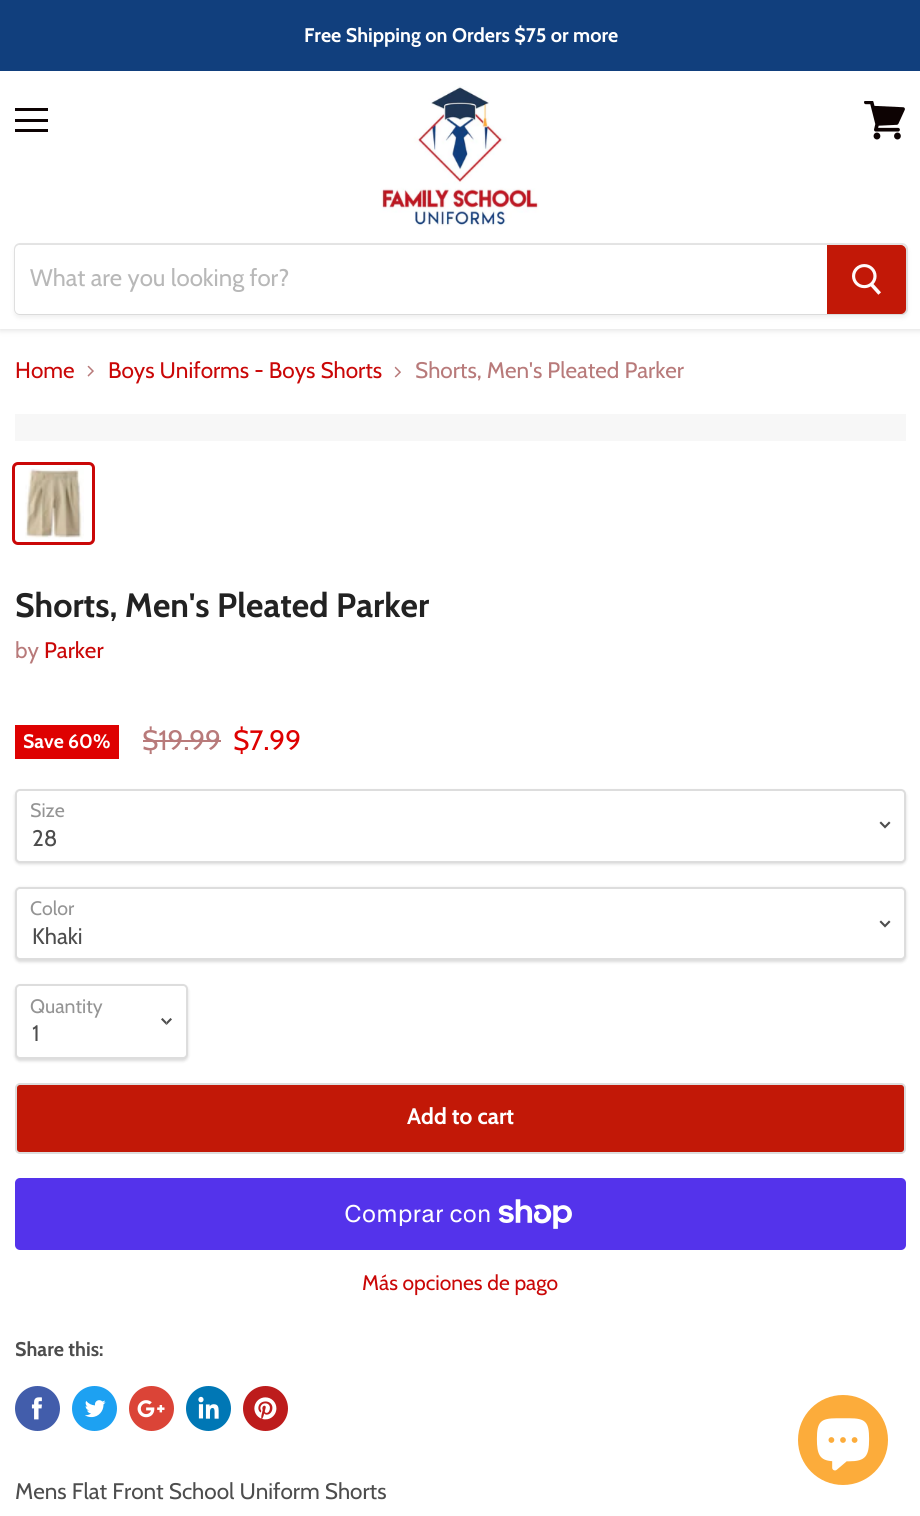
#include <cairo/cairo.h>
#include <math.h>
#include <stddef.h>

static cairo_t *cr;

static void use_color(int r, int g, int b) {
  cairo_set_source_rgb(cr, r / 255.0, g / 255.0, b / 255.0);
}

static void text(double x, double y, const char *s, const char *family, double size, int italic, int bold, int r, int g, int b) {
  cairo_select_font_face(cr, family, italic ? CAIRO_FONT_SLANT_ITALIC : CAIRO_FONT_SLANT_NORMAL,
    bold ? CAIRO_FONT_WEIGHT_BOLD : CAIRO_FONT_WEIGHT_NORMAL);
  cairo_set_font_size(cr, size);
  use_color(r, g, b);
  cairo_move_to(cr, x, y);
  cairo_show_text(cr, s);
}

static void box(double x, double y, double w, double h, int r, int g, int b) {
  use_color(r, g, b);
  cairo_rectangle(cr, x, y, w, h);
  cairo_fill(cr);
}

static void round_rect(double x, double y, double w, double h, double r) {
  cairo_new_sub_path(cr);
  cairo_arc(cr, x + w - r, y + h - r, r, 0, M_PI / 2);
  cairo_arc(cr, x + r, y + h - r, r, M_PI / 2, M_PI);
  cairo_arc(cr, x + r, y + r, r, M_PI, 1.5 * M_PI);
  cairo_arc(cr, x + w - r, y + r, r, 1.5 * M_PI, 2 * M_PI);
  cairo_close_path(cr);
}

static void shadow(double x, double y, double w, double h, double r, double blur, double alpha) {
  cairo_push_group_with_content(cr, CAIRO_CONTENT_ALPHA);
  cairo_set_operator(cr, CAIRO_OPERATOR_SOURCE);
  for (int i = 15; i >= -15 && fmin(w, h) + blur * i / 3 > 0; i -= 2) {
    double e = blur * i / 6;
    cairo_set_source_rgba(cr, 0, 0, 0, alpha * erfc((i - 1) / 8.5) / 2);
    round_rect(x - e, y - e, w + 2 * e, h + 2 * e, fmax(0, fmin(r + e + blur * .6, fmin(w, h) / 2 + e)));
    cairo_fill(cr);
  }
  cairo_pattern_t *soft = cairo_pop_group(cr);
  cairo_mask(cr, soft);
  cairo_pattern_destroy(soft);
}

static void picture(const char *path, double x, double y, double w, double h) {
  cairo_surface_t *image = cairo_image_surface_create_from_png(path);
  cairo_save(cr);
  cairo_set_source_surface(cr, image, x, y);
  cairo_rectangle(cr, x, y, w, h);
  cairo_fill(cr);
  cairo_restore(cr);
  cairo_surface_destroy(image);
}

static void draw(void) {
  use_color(255, 255, 255);
  cairo_paint(cr);
  use_color(127, 127, 127);
  shadow(0, 72, 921, 258, 0, 3, 0.25);
  box(0, 0, 920, 71, 17, 63, 125);
  box(0, 71, 920, 258, 255, 255, 255);
  box(15, 108, 33, 3, 13, 3, 3);
  box(15, 119, 33, 3, 13, 3, 3);
  box(15, 129, 33, 3, 13, 3, 3);
  picture("img_01.png", 864, 101, 41, 39);
  picture("img_02.png", 380, 86, 159, 140);
  use_color(127, 127, 127);
  shadow(14, 246, 894, 72, 6, 2, 0.11);
  round_rect(15, 244, 892, 70, 5);
  cairo_set_source_rgba(cr, 0.498, 0.498, 0.498, 0.2);
  cairo_stroke(cr);
  use_color(255, 255, 255);
  cairo_new_path(cr);
  cairo_move_to(cr, 20, 245);
  cairo_line_to(cr, 827, 245);
  cairo_line_to(cr, 827, 314);
  cairo_line_to(cr, 20, 314);
  cairo_curve_to(cr, 17, 314, 15, 312, 15, 309);
  cairo_line_to(cr, 15, 250);
  cairo_curve_to(cr, 15, 247, 17, 245, 20, 245);
  cairo_close_path(cr);
  cairo_fill(cr);
  use_color(194, 24, 7);
  cairo_new_path(cr);
  cairo_move_to(cr, 828, 246);
  cairo_line_to(cr, 901, 246);
  cairo_curve_to(cr, 903, 246, 905, 248, 905, 250);
  cairo_line_to(cr, 905, 309);
  cairo_curve_to(cr, 905, 311, 903, 313, 901, 313);
  cairo_line_to(cr, 828, 313);
  cairo_close_path(cr);
  cairo_fill_preserve(cr);
  cairo_stroke(cr);
  picture("img_03.png", 852, 264, 29, 31);
  picture("img_04.png", 87, 365, 7, 12);
  picture("img_05.png", 394, 366, 7, 12);
  box(15, 414, 891, 27, 247, 247, 247);
  round_rect(13.5, 463.5, 80, 80, 4.5);
  use_color(202, 7, 7);
  cairo_set_line_width(cr, 3);
  cairo_stroke(cr);
  picture("img_06.png", 25, 468, 59, 71);
  box(15, 725, 104, 34, 222, 1, 1);
  box(143, 740, 78, 2, 184, 122, 122);
  use_color(0, 0, 0);
  shadow(15, 791, 891, 73, 5, 1.5, 0.15);
  use_color(255, 255, 255);
  round_rect(16, 790, 889, 72, 4);
  cairo_fill_preserve(cr);
  use_color(221, 221, 221);
  cairo_set_line_width(cr, 2);
  cairo_stroke(cr);
  picture("img_07.png", 879, 821, 12, 8);
  use_color(0, 0, 0);
  shadow(15, 888, 891, 74, 5, 1.5, 0.15);
  use_color(255, 255, 255);
  round_rect(16, 888, 889, 71, 4);
  cairo_fill_preserve(cr);
  use_color(221, 221, 221);
  cairo_stroke(cr);
  picture("img_07.png", 879, 920, 12, 8);
  use_color(0, 0, 0);
  shadow(15, 986, 173, 75, 5, 1.5, 0.15);
  use_color(255, 255, 255);
  round_rect(16, 985, 171, 73, 4);
  cairo_fill_preserve(cr);
  use_color(221, 221, 221);
  cairo_stroke(cr);
  picture("img_08.png", 161, 1018, 11, 7);
  use_color(194, 24, 7);
  round_rect(16, 1084, 889, 69, 4);
  cairo_fill_preserve(cr);
  use_color(221, 221, 221);
  cairo_stroke(cr);
  use_color(84, 51, 235);
  round_rect(15, 1178, 891, 72, 5);
  cairo_fill(cr);
  picture("img_09.png", 498, 1199, 74, 30);
  use_color(66, 93, 171);
  cairo_arc(cr, 37.5, 1408.5, 22.5, 0, 2 * M_PI);
  cairo_fill(cr);
  picture("img_10.png", 31, 1397, 11, 23);
  use_color(29, 161, 242);
  cairo_arc(cr, 94.5, 1408.5, 22.5, 0, 2 * M_PI);
  cairo_fill(cr);
  picture("img_11.png", 85, 1400, 21, 18);
  use_color(219, 68, 55);
  cairo_arc(cr, 151.5, 1408.5, 22.5, 0, 2 * M_PI);
  cairo_fill(cr);
  picture("img_12.png", 137, 1400, 28, 18);
  use_color(0, 119, 181);
  cairo_arc(cr, 208.5, 1408.5, 22.5, 0, 2 * M_PI);
  cairo_fill(cr);
  picture("img_13.png", 198, 1396, 21, 23);
  use_color(189, 28, 28);
  cairo_arc(cr, 265.5, 1408.5, 22.5, 0, 2 * M_PI);
  cairo_fill(cr);
  picture("img_14.png", 254, 1397, 23, 23);
  use_color(252, 172, 59);
  cairo_arc(cr, 843, 1440, 45, 0, 2 * M_PI);
  cairo_fill(cr);
  picture("img_15.png", 816, 1418, 54, 53);
  text(304, 42, "Free Shipping on Orders $75 or more", "Cabin", 19.75, 0, 1, 255, 255, 255);
  text(30, 286, "What are you looking for?", "Cabin", 24, 0, 0, 184, 184, 184);
  text(15, 378, "Home", "Cabin", 22.5, 0, 0, 202, 7, 7);
  text(108, 378, "Boys Uniforms - Boys Shorts", "Cabin", 22.5, 0, 0, 202, 7, 7);
  text(415, 378, "Shorts, Men's Pleated Parker", "Cabin", 22.5, 0, 0, 184, 122, 122);
  text(15, 617, "Shorts, Men's Pleated Parker", "Cabin", 33.75, 0, 1, 34, 34, 34);
  text(15, 658, "by", "Cabin", 22.5, 0, 0, 184, 122, 122);
  text(44, 658, "Parker", "Cabin", 22.5, 0, 0, 202, 7, 7);
  text(23, 748, "Save 60%", "Cabin", 19.5, 0, 1, 255, 255, 255);
  text(142, 750, "$19.99", "Cabin", 28, 0, 0, 184, 122, 122);
  text(233, 750, "$7.99", "Cabin", 28, 0, 0, 222, 1, 1);
  text(30, 817, "Size", "Cabin", 19.5, 0, 0, 148, 148, 148);
  text(32, 846, "28", "Cabin", 22.5, 0, 0, 77, 77, 77);
  text(30, 915, "Color", "Cabin", 19.5, 0, 0, 148, 148, 148);
  text(32, 944, "Khaki", "Cabin", 22.5, 0, 0, 77, 77, 77);
  text(30, 1013, "Quantity", "Cabin", 19.5, 0, 0, 148, 148, 148);
  text(32, 1041, "1", "Cabin", 22.5, 0, 0, 77, 77, 77);
  text(407, 1124, "Add to cart", "Cabin", 22.5, 0, 1, 255, 255, 255);
  text(344, 1222, "Comprar con", "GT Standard", 24, 0, 0, 255, 255, 255);
  text(362, 1290, "Más opciones de pago", "Cabin", 21, 0, 0, 202, 7, 7);
  text(15, 1356, "Share this:", "Cabin", 19.75, 0, 1, 77, 77, 77);
  text(15, 1499, "Mens Flat Front School Uniform Shorts", "Cabin", 22.5, 0, 0, 77, 77, 77);
}

int main(void) {
  cairo_surface_t *surface = cairo_image_surface_create(CAIRO_FORMAT_RGB24, 920, 1516);
  cr = cairo_create(surface);
  cairo_font_options_t *options = cairo_font_options_create();
  cairo_font_options_set_hint_metrics(options, CAIRO_HINT_METRICS_OFF);
  cairo_font_options_set_hint_style(options, CAIRO_HINT_STYLE_NONE);
  cairo_set_font_options(cr, options);
  cairo_set_miter_limit(cr, 4);
  draw();
  cairo_surface_write_to_png(surface, "out.png");
  cairo_font_options_destroy(options);
  cairo_destroy(cr);
  cairo_surface_destroy(surface);
  return 0;
}
